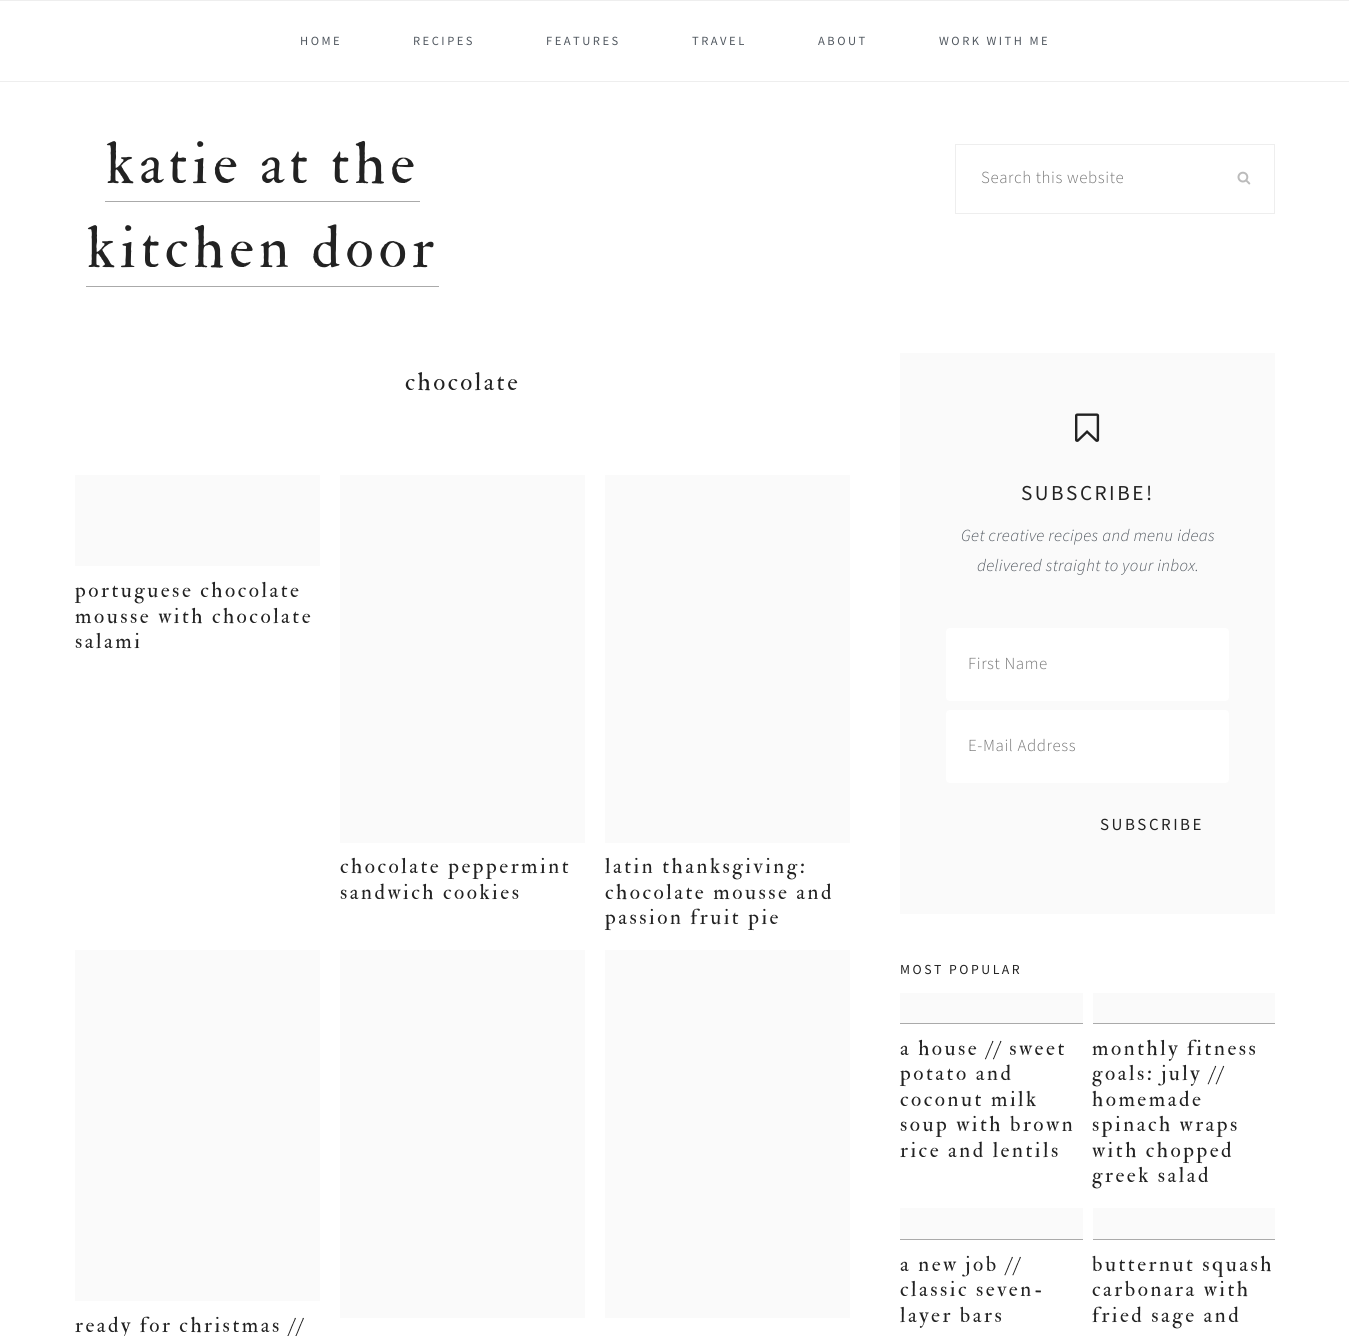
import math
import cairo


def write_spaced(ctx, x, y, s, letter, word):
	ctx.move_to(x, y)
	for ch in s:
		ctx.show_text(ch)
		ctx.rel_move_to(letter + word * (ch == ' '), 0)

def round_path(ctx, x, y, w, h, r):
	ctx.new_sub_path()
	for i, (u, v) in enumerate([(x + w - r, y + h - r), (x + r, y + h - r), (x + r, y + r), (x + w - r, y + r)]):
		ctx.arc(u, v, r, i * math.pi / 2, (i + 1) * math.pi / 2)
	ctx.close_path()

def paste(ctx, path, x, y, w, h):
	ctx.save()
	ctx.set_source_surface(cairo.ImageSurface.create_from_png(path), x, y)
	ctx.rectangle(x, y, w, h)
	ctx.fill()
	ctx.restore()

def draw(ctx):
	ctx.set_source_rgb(1, 1, 1)
	ctx.paint()
	ctx.set_source_rgb(0.933, 0.933, 0.933)
	ctx.rectangle(0, 0, 1349, 1)
	ctx.fill()
	ctx.rectangle(0, 81, 1349, 1)
	ctx.fill()
	ctx.select_font_face('Source Sans Pro')
	ctx.set_font_size(12.5)
	ctx.set_source_rgb(0.314, 0.341, 0.373)
	for x, y, s in [
		(300, 45, 'HOME'),
		(413, 45, 'RECIPES'),
		(546, 45, 'FEATURES'),
		(692, 45, 'TRAVEL'),
		(818, 45, 'ABOUT'),
		(939, 45, 'WORK WITH ME'),
	]:
		write_spaced(ctx, x, y, s, 2.5, 0)
	ctx.select_font_face('IM FELL Double Pica')
	ctx.set_font_size(58.75)
	ctx.set_source_rgb(0.133, 0.133, 0.133)
	write_spaced(ctx, 106, 183, 'katie at the', 5, 0)
	ctx.set_source_rgb(0.667, 0.667, 0.667)
	ctx.rectangle(105, 201, 315, 1)
	ctx.fill()
	ctx.set_source_rgb(0.133, 0.133, 0.133)
	write_spaced(ctx, 87, 267, 'kitchen door', 5, 0)
	ctx.set_source_rgb(0.667, 0.667, 0.667)
	ctx.rectangle(86, 286, 353, 1)
	ctx.fill()
	ctx.rectangle(955.5, 144.5, 319, 69)
	ctx.set_source_rgb(0.933, 0.933, 0.933)
	ctx.set_line_width(1)
	ctx.stroke()
	ctx.select_font_face('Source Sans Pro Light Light')
	ctx.set_font_size(16.9)
	ctx.set_source_rgb(0.459, 0.459, 0.459)
	write_spaced(ctx, 981, 183, 'Search this website', 0.6, 0)
	paste(ctx, 'media/1.png', 1237, 171, 14, 14)
	ctx.select_font_face('IM FELL Double Pica')
	ctx.set_font_size(25)
	ctx.set_source_rgb(0.133, 0.133, 0.133)
	write_spaced(ctx, 405, 390, 'chocolate', 2.5, 0)
	ctx.set_source_rgb(0.98, 0.98, 0.98)
	ctx.rectangle(75, 475, 245, 91)
	ctx.fill()
	ctx.set_font_size(21.25)
	ctx.set_source_rgb(0.133, 0.133, 0.133)
	for x, y, s in [
		(75, 597, 'portuguese chocolate'),
		(75, 623, 'mousse with chocolate'),
		(75, 648, 'salami'),
	]:
		write_spaced(ctx, x, y, s, 2.5, 0)
	ctx.set_source_rgb(0.98, 0.98, 0.98)
	ctx.rectangle(340, 475, 245, 368)
	ctx.fill()
	ctx.set_source_rgb(0.133, 0.133, 0.133)
	write_spaced(ctx, 340, 873, 'chocolate peppermint', 2.5, 0)
	write_spaced(ctx, 340, 899, 'sandwich cookies', 2.5, 0)
	ctx.set_source_rgb(0.98, 0.98, 0.98)
	ctx.rectangle(605, 475, 245, 368)
	ctx.fill()
	ctx.set_source_rgb(0.133, 0.133, 0.133)
	for x, y, s in [
		(605, 873, 'latin thanksgiving:'),
		(605, 899, 'chocolate mousse and'),
		(605, 924, 'passion fruit pie'),
	]:
		write_spaced(ctx, x, y, s, 2.5, 0)
	ctx.set_source_rgb(0.98, 0.98, 0.98)
	ctx.rectangle(340, 950, 245, 368)
	ctx.rectangle(605, 950, 245, 368)
	ctx.rectangle(75, 950, 245, 351)
	ctx.fill()
	ctx.set_source_rgb(0.133, 0.133, 0.133)
	write_spaced(ctx, 75, 1332, 'ready for christmas //', 2.5, 0)
	ctx.set_source_rgb(0.98, 0.98, 0.98)
	ctx.rectangle(900, 353, 375, 561)
	ctx.fill()
	paste(ctx, 'media/2.png', 1075, 413, 25, 29)
	ctx.select_font_face('Source Sans Pro')
	ctx.set_source_rgb(0.133, 0.133, 0.133)
	write_spaced(ctx, 1021, 500, 'SUBSCRIBE!', 2.5, 0)
	ctx.select_font_face('Source Sans Pro Light Light', cairo.FONT_SLANT_ITALIC)
	ctx.set_font_size(16.9)
	ctx.set_source_rgb(0.314, 0.341, 0.373)
	write_spaced(ctx, 961, 541, 'Get creative recipes and menu ideas', 0.35, 0)
	write_spaced(ctx, 977, 571, 'delivered straight to your inbox.', 0.35, 0)
	ctx.set_source_rgb(1, 1, 1)
	round_path(ctx, 946, 628, 283, 73, 4)
	ctx.fill()
	ctx.select_font_face('Source Sans Pro Light Light')
	ctx.set_source_rgb(0.459, 0.459, 0.459)
	write_spaced(ctx, 968, 669, 'First Name', 0.6, 0)
	ctx.set_source_rgb(1, 1, 1)
	round_path(ctx, 946, 710, 283, 73, 4)
	ctx.fill()
	ctx.set_source_rgb(0.459, 0.459, 0.459)
	write_spaced(ctx, 968, 751, 'E-Mail Address', 0.6, 0)
	ctx.select_font_face('Source Sans Pro')
	ctx.set_source_rgb(0.133, 0.133, 0.133)
	write_spaced(ctx, 1100, 830, 'SUBSCRIBE', 2.5, 0)
	ctx.set_font_size(13.75)
	write_spaced(ctx, 900, 974, 'MOST POPULAR', 2.5, 0)
	ctx.set_source_rgb(0.98, 0.98, 0.98)
	ctx.rectangle(900, 993, 183, 30)
	ctx.fill()
	ctx.set_source_rgb(0.667, 0.667, 0.667)
	ctx.rectangle(900, 1023, 183, 1)
	ctx.fill()
	ctx.select_font_face('IM FELL Double Pica')
	ctx.set_font_size(21.25)
	ctx.set_source_rgb(0.133, 0.133, 0.133)
	for x, y, s in [
		(900, 1055, 'a house // sweet'),
		(900, 1080, 'potato and'),
		(900, 1106, 'coconut milk'),
		(900, 1131, 'soup with brown'),
		(900, 1157, 'rice and lentils'),
	]:
		write_spaced(ctx, x, y, s, 2.5, 0)
	ctx.set_source_rgb(0.98, 0.98, 0.98)
	ctx.rectangle(1093, 993, 182, 30)
	ctx.fill()
	ctx.set_source_rgb(0.667, 0.667, 0.667)
	ctx.rectangle(1093, 1023, 182, 1)
	ctx.fill()
	ctx.set_source_rgb(0.133, 0.133, 0.133)
	for x, y, s in [
		(1092, 1055, 'monthly fitness'),
		(1092, 1080, 'goals: july //'),
		(1092, 1106, 'homemade'),
		(1092, 1131, 'spinach wraps'),
		(1092, 1157, 'with chopped'),
		(1092, 1182, 'greek salad'),
	]:
		write_spaced(ctx, x, y, s, 2.5, 0)
	ctx.set_source_rgb(0.98, 0.98, 0.98)
	ctx.rectangle(900, 1208, 183, 31)
	ctx.fill()
	ctx.set_source_rgb(0.667, 0.667, 0.667)
	ctx.rectangle(900, 1239, 183, 1)
	ctx.fill()
	ctx.set_source_rgb(0.133, 0.133, 0.133)
	for x, y, s in [
		(900, 1271, 'a new job //'),
		(900, 1296, 'classic seven-'),
		(900, 1322, 'layer bars'),
	]:
		write_spaced(ctx, x, y, s, 2.5, 0)
	ctx.set_source_rgb(0.98, 0.98, 0.98)
	ctx.rectangle(1093, 1208, 182, 31)
	ctx.fill()
	ctx.set_source_rgb(0.667, 0.667, 0.667)
	ctx.rectangle(1093, 1239, 182, 1)
	ctx.fill()
	ctx.set_source_rgb(0.133, 0.133, 0.133)
	for x, y, s in [
		(1092, 1271, 'butternut squash'),
		(1092, 1296, 'carbonara with'),
		(1092, 1322, 'fried sage and'),
	]:
		write_spaced(ctx, x, y, s, 2.5, 0)


surface = cairo.ImageSurface(cairo.FORMAT_RGB24, 1349, 1336)
ctx = cairo.Context(surface)
options = cairo.FontOptions()
options.set_hint_metrics(cairo.HINT_METRICS_OFF)
options.set_hint_style(cairo.HINT_STYLE_NONE)
ctx.set_font_options(options)
ctx.set_miter_limit(4)
draw(ctx)
surface.write_to_png('image.png')
